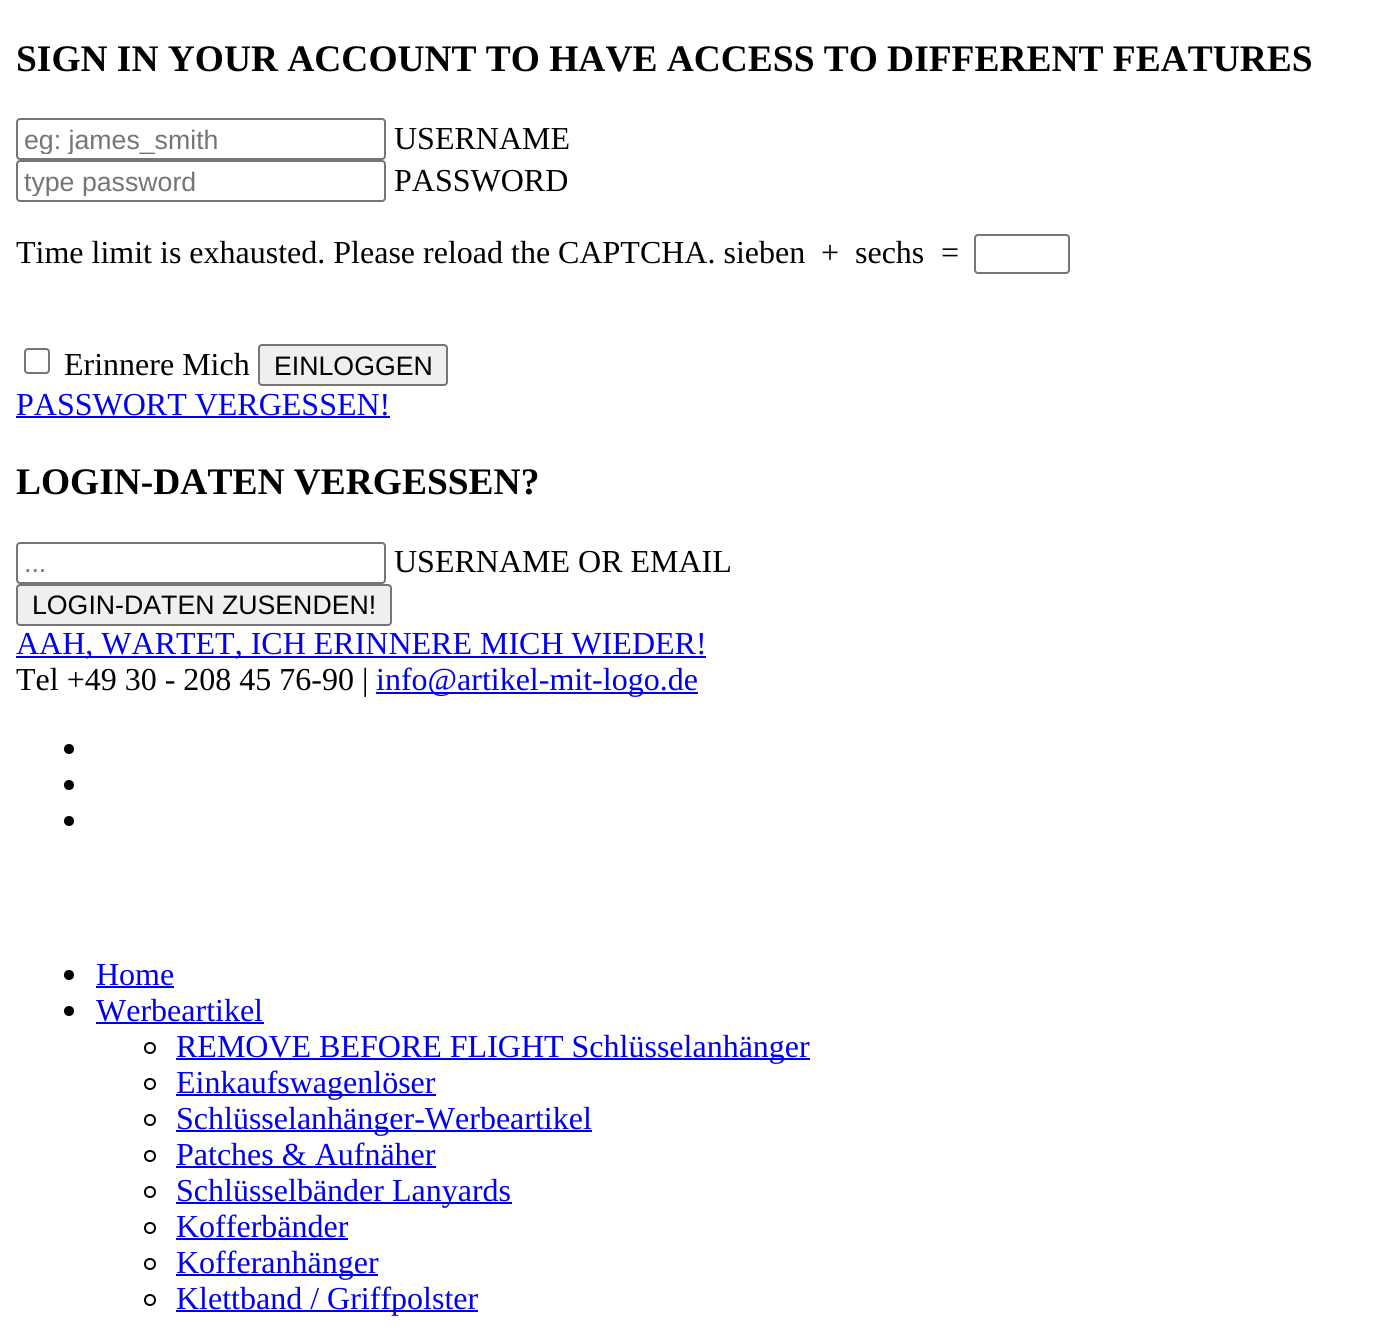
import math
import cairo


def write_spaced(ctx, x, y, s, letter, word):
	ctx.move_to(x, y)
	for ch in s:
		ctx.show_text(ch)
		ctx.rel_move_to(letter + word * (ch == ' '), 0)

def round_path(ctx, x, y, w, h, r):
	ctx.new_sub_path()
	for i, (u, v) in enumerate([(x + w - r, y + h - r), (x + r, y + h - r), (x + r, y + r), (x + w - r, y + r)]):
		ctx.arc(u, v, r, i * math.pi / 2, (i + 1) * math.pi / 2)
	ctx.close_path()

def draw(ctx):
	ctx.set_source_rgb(1, 1, 1)
	ctx.paint()
	ctx.select_font_face('Liberation Serif', cairo.FONT_SLANT_NORMAL, cairo.FONT_WEIGHT_BOLD)
	ctx.set_font_size(37.45)
	ctx.set_source_rgb(0, 0, 0)
	write_spaced(ctx, 16, 71, 'SIGN IN YOUR ACCOUNT TO HAVE ACCESS TO DIFFERENT FEATURES', 0, -0.1)
	round_path(ctx, 17, 119, 368, 40, 3)
	ctx.set_source_rgb(0.463, 0.463, 0.463)
	ctx.stroke()
	ctx.save()
	ctx.rectangle(24, 124, 354, 30)
	ctx.clip()
	ctx.select_font_face('Liberation Sans')
	ctx.set_font_size(26.7)
	ctx.set_source_rgb(0.459, 0.459, 0.459)
	ctx.move_to(24, 149)
	ctx.show_text('eg: james_smith')
	ctx.restore()
	ctx.select_font_face('Liberation Serif')
	ctx.set_font_size(32)
	ctx.set_source_rgb(0, 0, 0)
	ctx.move_to(394, 149)
	ctx.show_text('USERNAME')
	round_path(ctx, 17, 161, 368, 40, 3)
	ctx.set_source_rgb(0.463, 0.463, 0.463)
	ctx.stroke()
	ctx.save()
	ctx.rectangle(24, 166, 354, 30)
	ctx.clip()
	ctx.select_font_face('Liberation Sans')
	ctx.set_font_size(26.7)
	ctx.set_source_rgb(0.459, 0.459, 0.459)
	ctx.move_to(24, 191)
	ctx.show_text('type password')
	ctx.restore()
	ctx.set_source_rgb(0, 0, 0)
	for x, y, s in [
		(394, 191, 'PASSWORD'),
		(16, 263, 'Time limit is exhausted. Please reload the CAPTCHA. sieben'),
		(821, 263, '+'),
		(855, 263, 'sechs'),
		(941, 263, '='),
	]:
		ctx.move_to(x, y)
		ctx.show_text(s)
	round_path(ctx, 975, 235, 94, 38, 3)
	ctx.set_source_rgb(0.463, 0.463, 0.463)
	ctx.stroke()
	round_path(ctx, 25, 349, 24, 24, 3)
	ctx.stroke()
	ctx.set_source_rgb(0, 0, 0)
	ctx.move_to(64, 375)
	ctx.show_text('Erinnere Mich')
	ctx.set_source_rgb(0.937, 0.937, 0.937)
	round_path(ctx, 259, 345, 188, 40, 3)
	ctx.fill_preserve()
	ctx.set_source_rgb(0.463, 0.463, 0.463)
	ctx.stroke()
	ctx.select_font_face('Liberation Sans')
	ctx.set_font_size(26.7)
	ctx.set_source_rgb(0, 0, 0)
	ctx.move_to(274, 375)
	ctx.show_text('EINLOGGEN')
	ctx.select_font_face('Liberation Serif')
	ctx.set_font_size(32)
	ctx.set_source_rgb(0, 0, 0.933)
	ctx.move_to(16, 415)
	ctx.show_text('PASSWORT VERGESSEN!')
	ctx.rectangle(16, 416, 374, 2)
	ctx.fill()
	ctx.select_font_face('Liberation Serif', cairo.FONT_SLANT_NORMAL, cairo.FONT_WEIGHT_BOLD)
	ctx.set_font_size(37.45)
	ctx.set_source_rgb(0, 0, 0)
	ctx.move_to(16, 494)
	ctx.show_text('LOGIN-DATEN VERGESSEN?')
	round_path(ctx, 17, 543, 368, 40, 3)
	ctx.set_source_rgb(0.463, 0.463, 0.463)
	ctx.stroke()
	ctx.select_font_face('Liberation Sans')
	ctx.set_font_size(26.7)
	ctx.set_source_rgb(0.459, 0.459, 0.459)
	ctx.move_to(24, 572)
	ctx.show_text('...')
	ctx.select_font_face('Liberation Serif')
	ctx.set_font_size(32)
	ctx.set_source_rgb(0, 0, 0)
	ctx.move_to(394, 572)
	ctx.show_text('USERNAME OR EMAIL')
	ctx.set_source_rgb(0.937, 0.937, 0.937)
	round_path(ctx, 17, 585, 374, 40, 3)
	ctx.fill_preserve()
	ctx.set_source_rgb(0.463, 0.463, 0.463)
	ctx.stroke()
	ctx.select_font_face('Liberation Sans')
	ctx.set_font_size(26.7)
	ctx.set_source_rgb(0, 0, 0)
	ctx.move_to(32, 614)
	ctx.show_text('LOGIN-DATEN ZUSENDEN!')
	ctx.set_source_rgb(0, 0, 0.933)
	ctx.rectangle(16, 656, 690, 2)
	ctx.fill()
	ctx.select_font_face('Liberation Serif')
	ctx.set_font_size(32)
	ctx.move_to(16, 654)
	ctx.show_text('AAH, WARTET, ICH ERINNERE MICH WIEDER!')
	ctx.set_source_rgb(0, 0, 0)
	ctx.move_to(16, 690)
	ctx.show_text('Tel +49 30 - 208 45 76-90 |')
	ctx.set_source_rgb(0, 0, 0.933)
	ctx.rectangle(376, 692, 322, 2)
	ctx.fill()
	ctx.move_to(376, 690)
	ctx.show_text('info@artikel-mit-logo.de')
	ctx.set_source_rgb(0, 0, 0)
	ctx.new_path()
	ctx.arc(69, 749, 5, 0, 2 * math.pi)
	ctx.fill()
	ctx.arc(69, 785, 5, 0, 2 * math.pi)
	ctx.fill()
	ctx.arc(69, 821, 5, 0, 2 * math.pi)
	ctx.fill()
	ctx.arc(69, 975, 5, 0, 2 * math.pi)
	ctx.fill()
	ctx.set_source_rgb(0, 0, 0.933)
	ctx.move_to(96, 985)
	ctx.show_text('Home')
	ctx.rectangle(96, 986, 78, 2)
	ctx.fill()
	ctx.set_source_rgb(0, 0, 0)
	ctx.arc(69, 1011, 5, 0, 2 * math.pi)
	ctx.fill()
	ctx.set_source_rgb(0, 0, 0.933)
	ctx.move_to(96, 1021)
	ctx.show_text('Werbeartikel')
	ctx.rectangle(96, 1022, 168, 2)
	ctx.fill()
	ctx.arc(150, 1048, 5, 0, 2 * math.pi)
	ctx.set_source_rgb(0, 0, 0)
	ctx.stroke()
	ctx.set_source_rgb(0, 0, 0.933)
	ctx.rectangle(176, 1058, 634, 2)
	ctx.fill()
	ctx.move_to(176, 1057)
	ctx.show_text('REMOVE BEFORE FLIGHT Schlüsselanhänger')
	ctx.new_path()
	ctx.arc(150, 1084, 5, 0, 2 * math.pi)
	ctx.set_source_rgb(0, 0, 0)
	ctx.stroke()
	ctx.set_source_rgb(0, 0, 0.933)
	ctx.rectangle(176, 1094, 260, 2)
	ctx.fill()
	ctx.move_to(176, 1093)
	ctx.show_text('Einkaufswagenlöser')
	ctx.new_path()
	ctx.arc(150, 1120, 5, 0, 2 * math.pi)
	ctx.set_source_rgb(0, 0, 0)
	ctx.stroke()
	ctx.set_source_rgb(0, 0, 0.933)
	ctx.rectangle(176, 1130, 416, 2)
	ctx.fill()
	ctx.move_to(176, 1129)
	ctx.show_text('Schlüsselanhänger-Werbeartikel')
	ctx.new_path()
	ctx.arc(150, 1156, 5, 0, 2 * math.pi)
	ctx.set_source_rgb(0, 0, 0)
	ctx.stroke()
	ctx.set_source_rgb(0, 0, 0.933)
	ctx.move_to(176, 1165)
	ctx.show_text('Patches & Aufnäher')
	ctx.rectangle(176, 1166, 260, 2)
	ctx.fill()
	ctx.arc(150, 1192, 5, 0, 2 * math.pi)
	ctx.set_source_rgb(0, 0, 0)
	ctx.stroke()
	ctx.set_source_rgb(0, 0, 0.933)
	ctx.rectangle(176, 1202, 336, 2)
	ctx.fill()
	ctx.move_to(176, 1201)
	ctx.show_text('Schlüsselbänder Lanyards')
	ctx.new_path()
	ctx.arc(150, 1228, 5, 0, 2 * math.pi)
	ctx.set_source_rgb(0, 0, 0)
	ctx.stroke()
	ctx.set_source_rgb(0, 0, 0.933)
	ctx.move_to(176, 1237)
	ctx.show_text('Kofferbänder')
	ctx.rectangle(176, 1238, 172, 2)
	ctx.fill()
	ctx.arc(150, 1264, 5, 0, 2 * math.pi)
	ctx.set_source_rgb(0, 0, 0)
	ctx.stroke()
	ctx.set_source_rgb(0, 0, 0.933)
	ctx.rectangle(176, 1274, 202, 2)
	ctx.fill()
	ctx.move_to(176, 1273)
	ctx.show_text('Kofferanhänger')
	ctx.new_path()
	ctx.arc(150, 1300, 5, 0, 2 * math.pi)
	ctx.set_source_rgb(0, 0, 0)
	ctx.stroke()
	ctx.set_source_rgb(0, 0, 0.933)
	ctx.rectangle(176, 1310, 302, 2)
	ctx.fill()
	ctx.move_to(176, 1309)
	ctx.show_text('Klettband / Griffpolster')


surface = cairo.ImageSurface(cairo.FORMAT_RGB24, 1382, 1328)
ctx = cairo.Context(surface)
options = cairo.FontOptions()
options.set_hint_metrics(cairo.HINT_METRICS_OFF)
options.set_hint_style(cairo.HINT_STYLE_NONE)
ctx.set_font_options(options)
ctx.set_miter_limit(4)
draw(ctx)
surface.write_to_png('image.png')
